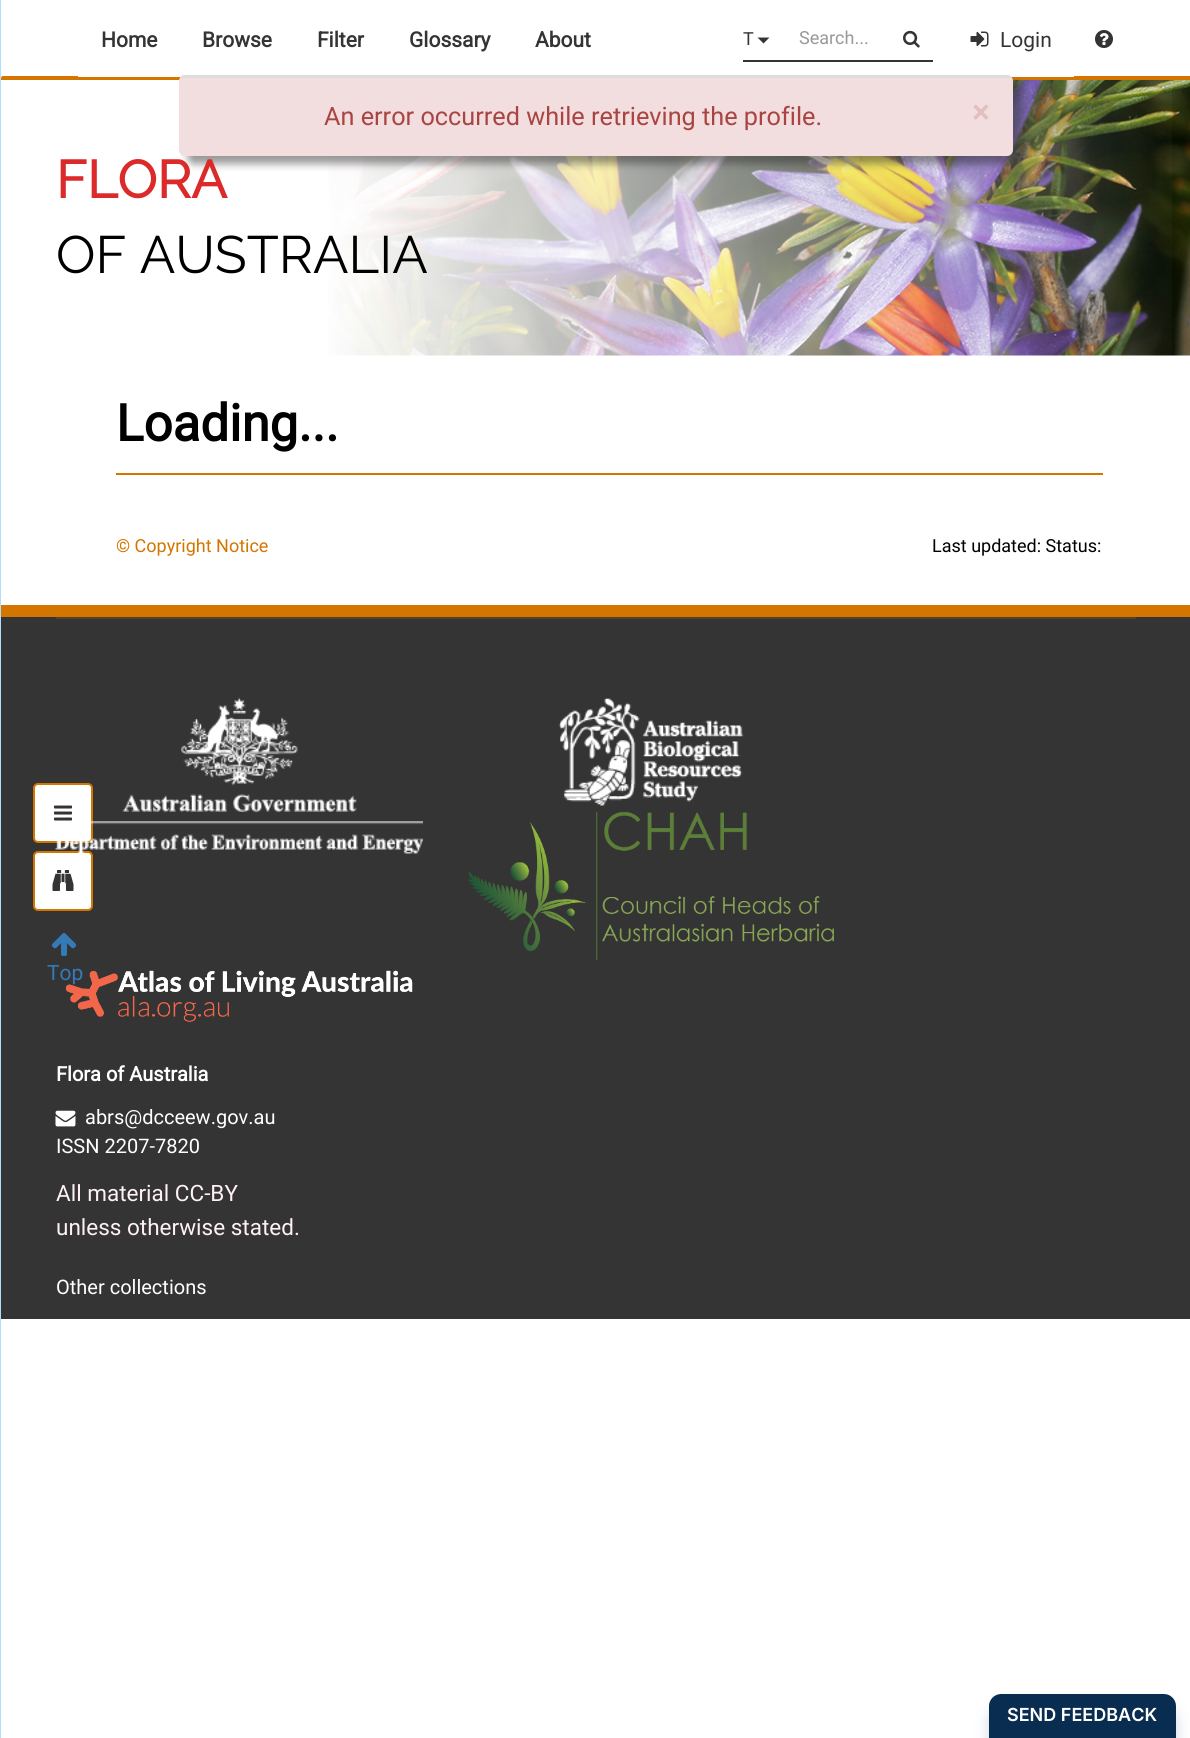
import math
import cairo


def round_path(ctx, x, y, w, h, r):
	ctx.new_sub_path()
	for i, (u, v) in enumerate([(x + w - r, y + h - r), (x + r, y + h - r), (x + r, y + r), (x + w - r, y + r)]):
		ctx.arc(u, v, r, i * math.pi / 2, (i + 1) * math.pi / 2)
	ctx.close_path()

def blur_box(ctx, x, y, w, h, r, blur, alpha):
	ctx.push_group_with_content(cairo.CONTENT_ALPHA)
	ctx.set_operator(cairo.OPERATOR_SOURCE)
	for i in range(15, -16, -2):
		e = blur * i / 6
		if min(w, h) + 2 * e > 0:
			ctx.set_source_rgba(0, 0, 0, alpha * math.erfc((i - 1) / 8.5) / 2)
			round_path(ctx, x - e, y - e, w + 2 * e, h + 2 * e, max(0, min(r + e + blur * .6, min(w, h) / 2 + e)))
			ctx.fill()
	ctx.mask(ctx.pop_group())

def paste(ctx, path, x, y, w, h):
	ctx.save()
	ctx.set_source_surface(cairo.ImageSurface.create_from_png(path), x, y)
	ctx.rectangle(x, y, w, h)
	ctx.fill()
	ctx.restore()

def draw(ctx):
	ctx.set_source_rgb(1, 1, 1)
	ctx.paint()
	ctx.set_source_rgb(0.831, 0.459, 0)
	ctx.new_path()
	ctx.move_to(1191, 80)
	ctx.line_to(0, 80)
	ctx.line_to(2, 76)
	ctx.line_to(1190, 76)
	ctx.close_path()
	ctx.fill()
	ctx.set_source_rgb(1, 1, 1)
	ctx.rectangle(78, 76, 216, 1)
	ctx.fill()
	ctx.select_font_face('Roboto', cairo.FONT_SLANT_NORMAL, cairo.FONT_WEIGHT_BOLD)
	ctx.set_font_size(21)
	ctx.set_source_rgb(0.204, 0.204, 0.204)
	for x, y, s in [
		(101, 47, 'Home'),
		(202, 47, 'Browse'),
		(317, 47, 'Filter'),
		(409, 47, 'Glossary'),
		(535, 47, 'About'),
	]:
		ctx.move_to(x, y)
		ctx.show_text(s)
	ctx.rectangle(743, 60, 190, 2)
	ctx.fill()
	ctx.select_font_face('Roboto')
	ctx.set_font_size(18)
	ctx.move_to(743, 45)
	ctx.show_text('T')
	ctx.new_path()
	ctx.move_to(757.5, 37.5)
	ctx.line_to(769.5, 37.5)
	ctx.line_to(763.5, 43.5)
	ctx.close_path()
	ctx.fill()
	ctx.set_source_rgb(0.6, 0.6, 0.6)
	ctx.move_to(799, 44)
	ctx.show_text('Search...')
	paste(ctx, 'media/1.png', 903, 30, 17, 18)
	ctx.set_source_rgb(1, 1, 1)
	ctx.rectangle(948, 76, 126, 1)
	ctx.fill()
	paste(ctx, 'media/2.png', 970, 31, 19, 16)
	ctx.set_font_size(21)
	ctx.set_source_rgb(0.204, 0.204, 0.204)
	ctx.move_to(1000, 47)
	ctx.show_text('Login')
	paste(ctx, 'media/3.png', 1095, 30, 18, 18)
	paste(ctx, 'media/4.png', 328, 80, 862, 276)
	gradient = cairo.LinearGradient(33, 218, 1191, 217)
	gradient.add_color_stop_rgba(0, 1, 1, 1, 1)
	gradient.add_color_stop_rgba(0.25, 1, 1, 1, 1)
	gradient.add_color_stop_rgba(1, 1, 1, 1, 0)
	ctx.set_source(gradient)
	ctx.rectangle(328, 80, 844, 276)
	ctx.fill()
	ctx.set_source_rgb(0.196, 0.196, 0.196)
	blur_box(ctx, 188, 83, 834, 81, 6, 4, 0.5)
	ctx.set_source_rgb(0.949, 0.871, 0.871)
	round_path(ctx, 179, 75, 834, 81, 6)
	ctx.fill()
	ctx.new_path()
	ctx.move_to(181.5, 78)
	ctx.curve_to(182, 77, 183.5, 76.5, 184.5, 76.5)
	ctx.line_to(1006.5, 76.5)
	ctx.curve_to(1007.5, 76.5, 1009, 77, 1009.5, 78)
	ctx.set_source_rgb(0.867, 0.867, 0.867)
	ctx.set_line_width(3)
	ctx.stroke()
	ctx.set_font_size(25.25)
	ctx.set_source_rgb(0.663, 0.267, 0.259)
	ctx.move_to(324, 125)
	ctx.show_text('An error occurred while retrieving the profile.')
	ctx.select_font_face('Roboto', cairo.FONT_SLANT_NORMAL, cairo.FONT_WEIGHT_BOLD)
	ctx.set_font_size(32)
	ctx.set_source_rgb(0.89, 0.749, 0.749)
	ctx.move_to(972, 123)
	ctx.show_text('×')
	ctx.select_font_face('Raleway', cairo.FONT_SLANT_NORMAL, cairo.FONT_WEIGHT_BOLD)
	ctx.set_font_size(52.5)
	ctx.set_source_rgb(0.863, 0.165, 0.165)
	ctx.move_to(56, 198)
	ctx.show_text('FLORA')
	ctx.select_font_face('Raleway Thin')
	ctx.set_source_rgb(0, 0, 0)
	ctx.move_to(56, 273)
	ctx.show_text('OF AUSTRALIA')
	ctx.select_font_face('Roboto', cairo.FONT_SLANT_NORMAL, cairo.FONT_WEIGHT_BOLD)
	ctx.set_font_size(51)
	ctx.move_to(116, 441)
	ctx.show_text('Loading...')
	ctx.set_source_rgb(0.831, 0.459, 0)
	ctx.rectangle(116, 473, 987, 2)
	ctx.fill()
	ctx.select_font_face('Roboto')
	ctx.set_font_size(18)
	ctx.move_to(116, 552)
	ctx.show_text('© Copyright Notice')
	ctx.set_source_rgb(0, 0, 0)
	ctx.move_to(932, 552)
	ctx.show_text('Last updated: Status:')
	ctx.set_source_rgb(0.686, 0.871, 0.98)
	ctx.rectangle(0, 0, 1, 1738)
	ctx.fill()
	ctx.set_source_rgb(0.204, 0.204, 0.204)
	ctx.rectangle(1, 617, 1189, 702)
	ctx.fill()
	ctx.set_source_rgb(1, 1, 1)
	round_path(ctx, 34, 784, 58, 58, 4)
	ctx.fill_preserve()
	ctx.set_source_rgb(0.831, 0.459, 0)
	ctx.set_line_width(2)
	ctx.stroke()
	paste(ctx, 'media/5.png', 54, 805, 18, 16)
	ctx.set_source_rgb(1, 1, 1)
	round_path(ctx, 34, 852, 58, 58, 4)
	ctx.fill_preserve()
	ctx.set_source_rgb(0.831, 0.459, 0)
	ctx.stroke()
	paste(ctx, 'media/6.png', 52, 870, 22, 21)
	paste(ctx, 'media/7.png', 51, 933, 26, 23)
	ctx.set_font_size(21)
	ctx.set_source_rgb(0.2, 0.478, 0.718)
	ctx.move_to(47, 980)
	ctx.show_text('Top')
	ctx.set_source_rgb(0.831, 0.459, 0)
	ctx.rectangle(1, 605, 1189, 12)
	ctx.fill()
	ctx.set_source_rgb(0.329, 0.255, 0.165)
	ctx.rectangle(56, 617, 1080, 2)
	ctx.fill()
	paste(ctx, 'media/8.png', 55, 697, 368, 157)
	paste(ctx, 'media/9.png', 558, 698, 186, 108)
	paste(ctx, 'media/10.png', 468, 811, 366, 149)
	paste(ctx, 'media/11.png', 65, 970, 348, 52)
	ctx.select_font_face('Roboto', cairo.FONT_SLANT_NORMAL, cairo.FONT_WEIGHT_BOLD)
	ctx.set_font_size(20)
	ctx.set_source_rgb(1, 1, 1)
	ctx.move_to(56, 1081)
	ctx.show_text('Flora of Australia')
	paste(ctx, 'media/12.png', 55, 1110, 21, 17)
	ctx.select_font_face('Roboto')
	ctx.move_to(85, 1124)
	ctx.show_text('abrs@dcceew.gov.au')
	ctx.move_to(56, 1153)
	ctx.show_text('ISSN 2207-7820')
	ctx.set_font_size(22.5)
	ctx.set_source_rgb(1, 0.941, 0.961)
	ctx.move_to(56, 1201)
	ctx.show_text('All material CC-BY')
	ctx.move_to(56, 1235)
	ctx.show_text('unless otherwise stated.')
	ctx.set_font_size(20)
	ctx.set_source_rgb(1, 1, 1)
	ctx.move_to(56, 1294)
	ctx.show_text('Other collections')
	ctx.set_source_rgb(0, 0.224, 0.502)
	blur_box(ctx, 989, 1709, 187, 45, 12, 7.5, 0.2)
	ctx.set_source_rgb(0.039, 0.176, 0.314)
	ctx.new_path()
	ctx.move_to(1001, 1694)
	ctx.line_to(1164, 1694)
	ctx.curve_to(1170.5, 1694, 1176, 1699.5, 1176, 1706)
	ctx.line_to(1176, 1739)
	ctx.line_to(989, 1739)
	ctx.line_to(989, 1706)
	ctx.curve_to(989, 1699.5, 994.5, 1694, 1001, 1694)
	ctx.close_path()
	ctx.fill()
	ctx.select_font_face('Inter SemiBold')
	ctx.set_font_size(18)
	ctx.set_source_rgb(1, 1, 1)
	ctx.move_to(1007, 1721)
	ctx.show_text('SEND FEEDBACK')


surface = cairo.ImageSurface(cairo.FORMAT_RGB24, 1190, 1738)
ctx = cairo.Context(surface)
options = cairo.FontOptions()
options.set_hint_metrics(cairo.HINT_METRICS_OFF)
options.set_hint_style(cairo.HINT_STYLE_NONE)
ctx.set_font_options(options)
ctx.set_miter_limit(4)
draw(ctx)
surface.write_to_png('image.png')
